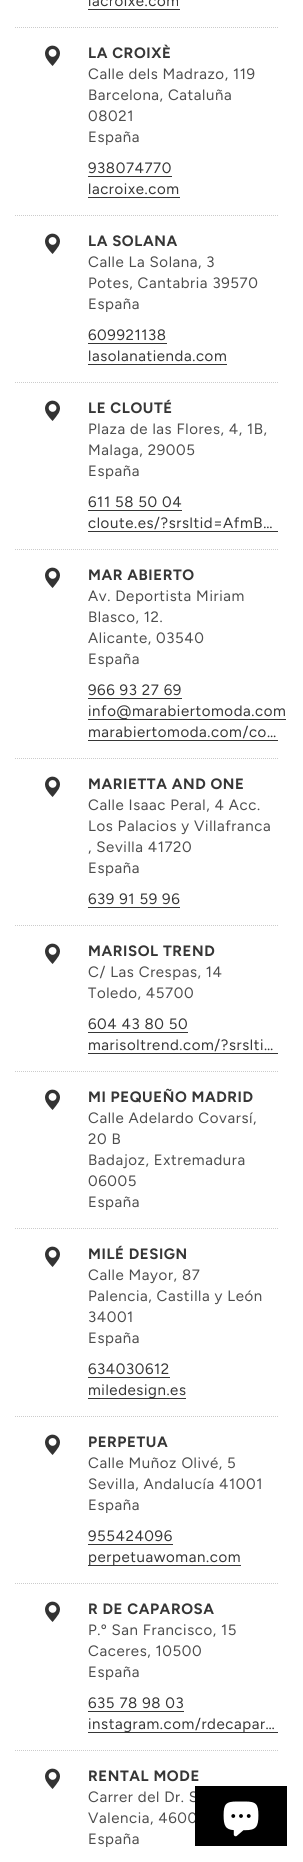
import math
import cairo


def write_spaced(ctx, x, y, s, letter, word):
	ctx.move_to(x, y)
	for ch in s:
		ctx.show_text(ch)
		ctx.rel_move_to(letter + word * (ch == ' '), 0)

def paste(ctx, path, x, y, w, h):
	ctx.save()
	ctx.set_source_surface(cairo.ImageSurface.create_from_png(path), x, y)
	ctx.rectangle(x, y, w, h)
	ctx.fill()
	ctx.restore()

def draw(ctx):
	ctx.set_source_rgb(1, 1, 1)
	ctx.paint()
	ctx.select_font_face('Figtree')
	ctx.set_font_size(15)
	ctx.set_source_rgb(0.212, 0.212, 0.212)
	write_spaced(ctx, 88, 6, 'lacroixe.com', 0.6, 0)
	ctx.rectangle(88, 9, 92, 1)
	ctx.fill()
	ctx.new_path()
	ctx.move_to(15, 27.5)
	ctx.line_to(278, 27.5)
	ctx.set_source_rgb(0.8, 0.8, 0.8)
	ctx.set_line_width(1)
	ctx.set_dash([1, 1])
	ctx.stroke()
	paste(ctx, 'media/1.png', 45, 45, 15, 21)
	ctx.select_font_face('Figtree', cairo.FONT_SLANT_NORMAL, cairo.FONT_WEIGHT_BOLD)
	ctx.set_source_rgb(0.212, 0.212, 0.212)
	write_spaced(ctx, 88, 58, 'LA CROIXÈ', 0.6, 0)
	ctx.select_font_face('Figtree')
	ctx.set_source_rgb(0.302, 0.302, 0.302)
	for x, y, s in [
		(88, 79, 'Calle dels Madrazo, 119'),
		(88, 100, 'Barcelona, Cataluña'),
		(88, 121, '08021'),
		(88, 142, 'España'),
	]:
		write_spaced(ctx, x, y, s, 0.6, 0)
	ctx.set_source_rgb(0.212, 0.212, 0.212)
	write_spaced(ctx, 88, 173, '938074770', 0.6, 0)
	ctx.rectangle(88, 176, 84, 1)
	ctx.fill()
	write_spaced(ctx, 88, 194, 'lacroixe.com', 0.6, 0)
	ctx.rectangle(88, 197, 92, 1)
	ctx.fill()
	ctx.new_path()
	ctx.move_to(15, 215.5)
	ctx.line_to(278, 215.5)
	ctx.set_source_rgb(0.8, 0.8, 0.8)
	ctx.stroke()
	paste(ctx, 'media/1.png', 45, 233, 15, 21)
	ctx.select_font_face('Figtree', cairo.FONT_SLANT_NORMAL, cairo.FONT_WEIGHT_BOLD)
	ctx.set_source_rgb(0.212, 0.212, 0.212)
	write_spaced(ctx, 88, 246, 'LA SOLANA', 0.6, 0)
	ctx.select_font_face('Figtree')
	ctx.set_source_rgb(0.302, 0.302, 0.302)
	for x, y, s in [
		(88, 267, 'Calle La Solana, 3'),
		(88, 288, 'Potes, Cantabria 39570'),
		(88, 309, 'España'),
	]:
		write_spaced(ctx, x, y, s, 0.6, 0)
	ctx.set_source_rgb(0.212, 0.212, 0.212)
	write_spaced(ctx, 88, 340, '609921138', 0.6, 0)
	ctx.rectangle(88, 343, 79, 1)
	ctx.fill()
	write_spaced(ctx, 88, 361, 'lasolanatienda.com', 0.6, 0)
	ctx.rectangle(88, 364, 139, 1)
	ctx.fill()
	ctx.new_path()
	ctx.move_to(15, 382.5)
	ctx.line_to(278, 382.5)
	ctx.set_source_rgb(0.8, 0.8, 0.8)
	ctx.stroke()
	paste(ctx, 'media/1.png', 45, 400, 15, 21)
	ctx.select_font_face('Figtree', cairo.FONT_SLANT_NORMAL, cairo.FONT_WEIGHT_BOLD)
	ctx.set_source_rgb(0.212, 0.212, 0.212)
	write_spaced(ctx, 88, 413, 'LE CLOUTÉ', 0.6, 0)
	ctx.select_font_face('Figtree')
	ctx.set_source_rgb(0.302, 0.302, 0.302)
	for x, y, s in [
		(88, 434, 'Plaza de las Flores, 4, 1B,'),
		(88, 455, 'Malaga, 29005'),
		(88, 476, 'España'),
	]:
		write_spaced(ctx, x, y, s, 0.6, 0)
	ctx.set_source_rgb(0.212, 0.212, 0.212)
	write_spaced(ctx, 88, 507, '611 58 50 04', 0.6, 0)
	ctx.rectangle(88, 510, 94, 1)
	ctx.fill()
	write_spaced(ctx, 88, 528, 'cloute.es/?srsltid=AfmB…', 0.6, 0)
	ctx.rectangle(88, 531, 190, 1)
	ctx.fill()
	ctx.new_path()
	ctx.move_to(15, 549.5)
	ctx.line_to(278, 549.5)
	ctx.set_source_rgb(0.8, 0.8, 0.8)
	ctx.stroke()
	paste(ctx, 'media/1.png', 45, 567, 15, 21)
	ctx.select_font_face('Figtree', cairo.FONT_SLANT_NORMAL, cairo.FONT_WEIGHT_BOLD)
	ctx.set_source_rgb(0.212, 0.212, 0.212)
	write_spaced(ctx, 88, 580, 'MAR ABIERTO', 0.6, 0)
	ctx.select_font_face('Figtree')
	ctx.set_source_rgb(0.302, 0.302, 0.302)
	for x, y, s in [
		(88, 601, 'Av. Deportista Miriam'),
		(88, 622, 'Blasco, 12.'),
		(88, 643, 'Alicante, 03540'),
		(88, 664, 'España'),
	]:
		write_spaced(ctx, x, y, s, 0.6, 0)
	ctx.set_source_rgb(0.212, 0.212, 0.212)
	write_spaced(ctx, 88, 695, '966 93 27 69', 0.6, 0)
	ctx.rectangle(88, 698, 94, 1)
	ctx.fill()
	ctx.rectangle(88, 719, 198, 1)
	ctx.fill()
	write_spaced(ctx, 88, 716, 'info@marabiertomoda.com', 0.6, 0)
	write_spaced(ctx, 88, 737, 'marabiertomoda.com/co…', 0.6, 0)
	ctx.rectangle(88, 740, 190, 1)
	ctx.fill()
	ctx.new_path()
	ctx.move_to(15, 758.5)
	ctx.line_to(278, 758.5)
	ctx.set_source_rgb(0.8, 0.8, 0.8)
	ctx.stroke()
	paste(ctx, 'media/1.png', 45, 776, 15, 21)
	ctx.select_font_face('Figtree', cairo.FONT_SLANT_NORMAL, cairo.FONT_WEIGHT_BOLD)
	ctx.set_source_rgb(0.212, 0.212, 0.212)
	write_spaced(ctx, 88, 789, 'MARIETTA AND ONE', 0.6, 0)
	ctx.select_font_face('Figtree')
	ctx.set_source_rgb(0.302, 0.302, 0.302)
	for x, y, s in [
		(88, 810, 'Calle Isaac Peral, 4 Acc.'),
		(88, 831, 'Los Palacios y Villafranca'),
		(88, 852, ', Sevilla 41720'),
		(88, 873, 'España'),
	]:
		write_spaced(ctx, x, y, s, 0.6, 0)
	ctx.set_source_rgb(0.212, 0.212, 0.212)
	write_spaced(ctx, 88, 904, '639 91 59 96', 0.6, 0)
	ctx.rectangle(88, 907, 92, 1)
	ctx.fill()
	ctx.new_path()
	ctx.move_to(15, 925.5)
	ctx.line_to(278, 925.5)
	ctx.set_source_rgb(0.8, 0.8, 0.8)
	ctx.stroke()
	paste(ctx, 'media/1.png', 45, 943, 15, 21)
	ctx.select_font_face('Figtree', cairo.FONT_SLANT_NORMAL, cairo.FONT_WEIGHT_BOLD)
	ctx.set_source_rgb(0.212, 0.212, 0.212)
	write_spaced(ctx, 88, 956, 'MARISOL TREND', 0.6, 0)
	ctx.select_font_face('Figtree')
	ctx.set_source_rgb(0.302, 0.302, 0.302)
	write_spaced(ctx, 88, 977, 'C/ Las Crespas, 14', 0.6, 0)
	write_spaced(ctx, 88, 998, 'Toledo, 45700', 0.6, 0)
	ctx.set_source_rgb(0.212, 0.212, 0.212)
	write_spaced(ctx, 88, 1029, '604 43 80 50', 0.6, 0)
	ctx.rectangle(88, 1032, 100, 1)
	ctx.fill()
	write_spaced(ctx, 88, 1050, 'marisoltrend.com/?srslti…', 0.6, 0)
	ctx.rectangle(88, 1053, 190, 1)
	ctx.fill()
	ctx.new_path()
	ctx.move_to(15, 1071.5)
	ctx.line_to(278, 1071.5)
	ctx.set_source_rgb(0.8, 0.8, 0.8)
	ctx.stroke()
	paste(ctx, 'media/1.png', 45, 1089, 15, 21)
	ctx.select_font_face('Figtree', cairo.FONT_SLANT_NORMAL, cairo.FONT_WEIGHT_BOLD)
	ctx.set_source_rgb(0.212, 0.212, 0.212)
	write_spaced(ctx, 88, 1102, 'MI PEQUEÑO MADRID', 0.6, 0)
	ctx.select_font_face('Figtree')
	ctx.set_source_rgb(0.302, 0.302, 0.302)
	for x, y, s in [
		(88, 1123, 'Calle Adelardo Covarsí,'),
		(88, 1144, '20 B'),
		(88, 1165, 'Badajoz, Extremadura'),
		(88, 1186, '06005'),
		(88, 1207, 'España'),
	]:
		write_spaced(ctx, x, y, s, 0.6, 0)
	ctx.new_path()
	ctx.move_to(15, 1228.5)
	ctx.line_to(278, 1228.5)
	ctx.set_source_rgb(0.8, 0.8, 0.8)
	ctx.stroke()
	paste(ctx, 'media/1.png', 45, 1246, 15, 21)
	ctx.select_font_face('Figtree', cairo.FONT_SLANT_NORMAL, cairo.FONT_WEIGHT_BOLD)
	ctx.set_source_rgb(0.212, 0.212, 0.212)
	write_spaced(ctx, 88, 1259, 'MILÉ DESIGN', 0.6, 0)
	ctx.select_font_face('Figtree')
	ctx.set_source_rgb(0.302, 0.302, 0.302)
	for x, y, s in [
		(88, 1280, 'Calle Mayor, 87'),
		(88, 1301, 'Palencia, Castilla y León'),
		(88, 1322, '34001'),
		(88, 1343, 'España'),
	]:
		write_spaced(ctx, x, y, s, 0.6, 0)
	ctx.set_source_rgb(0.212, 0.212, 0.212)
	write_spaced(ctx, 88, 1374, '634030612', 0.6, 0)
	ctx.rectangle(88, 1377, 82, 1)
	ctx.fill()
	ctx.rectangle(88, 1398, 98, 1)
	ctx.fill()
	write_spaced(ctx, 88, 1395, 'miledesign.es', 0.6, 0)
	ctx.new_path()
	ctx.move_to(15, 1416.5)
	ctx.line_to(278, 1416.5)
	ctx.set_source_rgb(0.8, 0.8, 0.8)
	ctx.stroke()
	paste(ctx, 'media/1.png', 45, 1434, 15, 21)
	ctx.select_font_face('Figtree', cairo.FONT_SLANT_NORMAL, cairo.FONT_WEIGHT_BOLD)
	ctx.set_source_rgb(0.212, 0.212, 0.212)
	write_spaced(ctx, 88, 1447, 'PERPETUA', 0.6, 0)
	ctx.select_font_face('Figtree')
	ctx.set_source_rgb(0.302, 0.302, 0.302)
	for x, y, s in [
		(88, 1468, 'Calle Muñoz Olivé, 5'),
		(88, 1489, 'Sevilla, Andalucía 41001'),
		(88, 1510, 'España'),
	]:
		write_spaced(ctx, x, y, s, 0.6, 0)
	ctx.set_source_rgb(0.212, 0.212, 0.212)
	write_spaced(ctx, 88, 1541, '955424096', 0.6, 0)
	ctx.rectangle(88, 1544, 85, 1)
	ctx.fill()
	write_spaced(ctx, 88, 1562, 'perpetuawoman.com', 0.6, 0)
	ctx.rectangle(88, 1565, 153, 1)
	ctx.fill()
	ctx.new_path()
	ctx.move_to(15, 1583.5)
	ctx.line_to(278, 1583.5)
	ctx.set_source_rgb(0.8, 0.8, 0.8)
	ctx.stroke()
	paste(ctx, 'media/1.png', 45, 1601, 15, 21)
	ctx.select_font_face('Figtree', cairo.FONT_SLANT_NORMAL, cairo.FONT_WEIGHT_BOLD)
	ctx.set_source_rgb(0.212, 0.212, 0.212)
	write_spaced(ctx, 88, 1614, 'R DE CAPAROSA', 0.6, 0)
	ctx.select_font_face('Figtree')
	ctx.set_source_rgb(0.302, 0.302, 0.302)
	for x, y, s in [
		(88, 1635, 'P.º San Francisco, 15'),
		(88, 1656, 'Caceres, 10500'),
		(88, 1677, 'España'),
	]:
		write_spaced(ctx, x, y, s, 0.6, 0)
	ctx.set_source_rgb(0.212, 0.212, 0.212)
	write_spaced(ctx, 88, 1708, '635 78 98 03', 0.6, 0)
	ctx.rectangle(88, 1711, 96, 1)
	ctx.fill()
	ctx.rectangle(88, 1732, 190, 1)
	ctx.fill()
	write_spaced(ctx, 88, 1729, 'instagram.com/rdecapar…', 0.6, 0)
	ctx.new_path()
	ctx.move_to(15, 1750.5)
	ctx.line_to(278, 1750.5)
	ctx.set_source_rgb(0.8, 0.8, 0.8)
	ctx.stroke()
	paste(ctx, 'media/1.png', 45, 1768, 15, 21)
	ctx.select_font_face('Figtree', cairo.FONT_SLANT_NORMAL, cairo.FONT_WEIGHT_BOLD)
	ctx.set_source_rgb(0.212, 0.212, 0.212)
	write_spaced(ctx, 88, 1781, 'RENTAL MODE', 0.6, 0)
	ctx.select_font_face('Figtree')
	ctx.set_source_rgb(0.302, 0.302, 0.302)
	for x, y, s in [
		(88, 1802, 'Carrer del Dr. S'),
		(88, 1823, 'Valencia, 4600'),
		(88, 1844, 'España'),
	]:
		write_spaced(ctx, x, y, s, 0.6, 0)
	ctx.set_source_rgb(0, 0, 0)
	ctx.rectangle(195, 1786, 92, 60)
	ctx.fill()
	paste(ctx, 'media/2.png', 223, 1801, 36, 36)


surface = cairo.ImageSurface(cairo.FORMAT_RGB24, 303, 1862)
ctx = cairo.Context(surface)
options = cairo.FontOptions()
options.set_hint_metrics(cairo.HINT_METRICS_OFF)
options.set_hint_style(cairo.HINT_STYLE_NONE)
ctx.set_font_options(options)
ctx.set_miter_limit(4)
draw(ctx)
surface.write_to_png('image.png')
